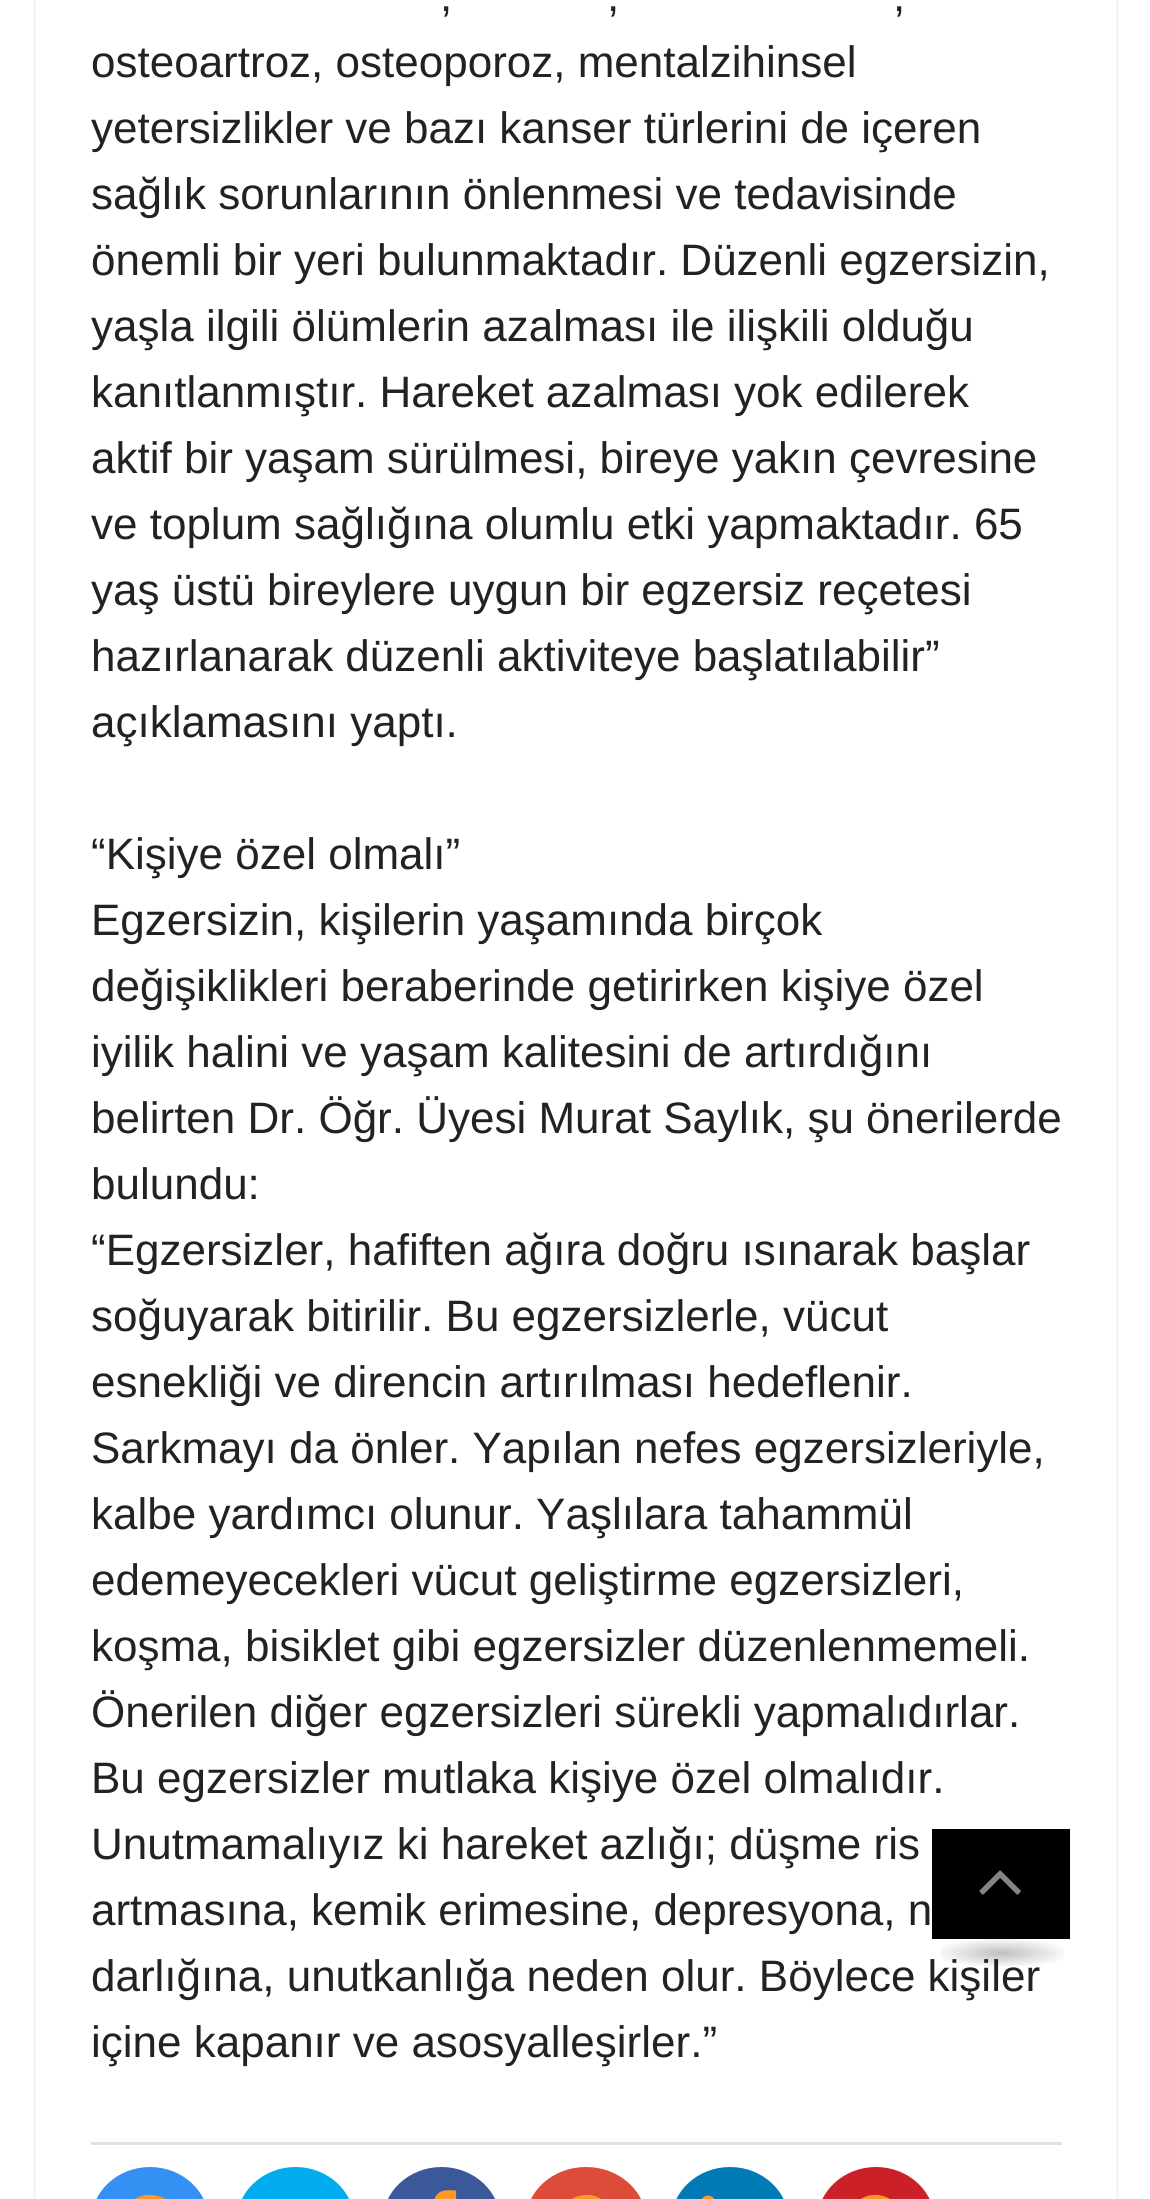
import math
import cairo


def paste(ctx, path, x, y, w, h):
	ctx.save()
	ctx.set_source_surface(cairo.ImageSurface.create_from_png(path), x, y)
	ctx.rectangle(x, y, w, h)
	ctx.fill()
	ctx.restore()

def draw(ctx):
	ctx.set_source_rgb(1, 1, 1)
	ctx.paint()
	ctx.rectangle(34.5, -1.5, 1083, 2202)
	ctx.set_source_rgb(0.957, 0.957, 0.957)
	ctx.set_line_width(3)
	ctx.stroke()
	ctx.select_font_face('Liberation Sans')
	ctx.set_font_size(44)
	ctx.set_source_rgb(0.133, 0.133, 0.133)
	for x, y, s in [
		(440, 11, ','),
		(607, 11, ','),
		(893, 11, ','),
		(91, 77, 'osteoartroz, osteoporoz, mentalzihinsel'),
		(91, 143, 'yetersizlikler ve bazı kanser türlerini de içeren'),
		(91, 209, 'sağlık sorunlarının önlenmesi ve tedavisinde'),
		(91, 275, 'önemli bir yeri bulunmaktadır. Düzenli egzersizin,'),
		(91, 341, 'yaşla ilgili ölümlerin azalması ile ilişkili olduğu'),
		(91, 407, 'kanıtlanmıştır. Hareket azalması yok edilerek'),
		(91, 473, 'aktif bir yaşam sürülmesi, bireye yakın çevresine'),
		(91, 539, 've toplum sağlığına olumlu etki yapmaktadır. 65'),
		(91, 605, 'yaş üstü bireylere uygun bir egzersiz reçetesi'),
		(91, 671, 'hazırlanarak düzenli aktiviteye başlatılabilir”'),
		(91, 737, 'açıklamasını yaptı.'),
		(91, 869, '“Kişiye özel olmalı”'),
		(91, 935, 'Egzersizin, kişilerin yaşamında birçok'),
		(91, 1001, 'değişiklikleri beraberinde getirirken kişiye özel'),
		(91, 1067, 'iyilik halini ve yaşam kalitesini de artırdığını'),
		(91, 1133, 'belirten Dr. Öğr. Üyesi Murat Saylık, şu önerilerde'),
		(91, 1199, 'bulundu:'),
		(91, 1265, '“Egzersizler, hafiften ağıra doğru ısınarak başlar'),
		(91, 1331, 'soğuyarak bitirilir. Bu egzersizlerle, vücut'),
		(91, 1397, 'esnekliği ve direncin artırılması hedeflenir.'),
		(91, 1463, 'Sarkmayı da önler. Yapılan nefes egzersizleriyle,'),
		(91, 1529, 'kalbe yardımcı olunur. Yaşlılara tahammül'),
		(91, 1595, 'edemeyecekleri vücut geliştirme egzersizleri,'),
		(91, 1661, 'koşma, bisiklet gibi egzersizler düzenlenmemeli.'),
		(91, 1727, 'Önerilen diğer egzersizleri sürekli yapmalıdırlar.'),
		(91, 1793, 'Bu egzersizler mutlaka kişiye özel olmalıdır.'),
		(91, 1859, 'Unutmamalıyız ki hareket azlığı; düşme ris'),
		(91, 1925, 'artmasına, kemik erimesine, depresyona, n'),
		(91, 1991, 'darlığına, unutkanlığa neden olur. Böylece kişiler'),
		(91, 2057, 'içine kapanır ve asosyalleşirler.”'),
	]:
		ctx.move_to(x, y)
		ctx.show_text(s)
	ctx.set_source_rgb(0.871, 0.886, 0.902)
	ctx.rectangle(91, 2142, 971, 3)
	ctx.fill()
	ctx.set_source_rgb(0.204, 0.565, 0.953)
	ctx.new_path()
	ctx.move_to(150, 2167)
	ctx.curve_to(182.5, 2167, 209, 2191.5, 209, 2222)
	ctx.curve_to(209, 2252.5, 182.5, 2277, 150, 2277)
	ctx.curve_to(117.5, 2277, 91, 2252.5, 91, 2222)
	ctx.curve_to(91, 2191.5, 117.5, 2167, 150, 2167)
	ctx.close_path()
	ctx.fill()
	paste(ctx, 'media/1.png', 134, 2194, 31, 5)
	ctx.set_source_rgb(0, 0.675, 0.929)
	ctx.new_path()
	ctx.move_to(295.5, 2167)
	ctx.curve_to(328, 2167, 354.5, 2191.5, 354.5, 2222)
	ctx.curve_to(354.5, 2252.5, 328, 2277, 295.5, 2277)
	ctx.curve_to(263, 2277, 236.5, 2252.5, 236.5, 2222)
	ctx.curve_to(236.5, 2191.5, 263, 2167, 295.5, 2167)
	ctx.close_path()
	ctx.fill()
	ctx.set_source_rgb(0.231, 0.349, 0.596)
	ctx.new_path()
	ctx.move_to(441.5, 2167)
	ctx.curve_to(474, 2167, 500.5, 2191.5, 500.5, 2222)
	ctx.curve_to(500.5, 2252.5, 474, 2277, 441.5, 2277)
	ctx.curve_to(409, 2277, 382.5, 2252.5, 382.5, 2222)
	ctx.curve_to(382.5, 2191.5, 409, 2167, 441.5, 2167)
	ctx.close_path()
	ctx.fill()
	paste(ctx, 'media/2.png', 434, 2190, 23, 9)
	ctx.set_source_rgb(0.867, 0.294, 0.224)
	ctx.new_path()
	ctx.move_to(586, 2167)
	ctx.curve_to(619.5, 2167, 646.5, 2191.5, 646.5, 2222)
	ctx.curve_to(646.5, 2252.5, 619.5, 2277, 586, 2277)
	ctx.curve_to(552.5, 2277, 525.5, 2252.5, 525.5, 2222)
	ctx.curve_to(525.5, 2191.5, 552.5, 2167, 586, 2167)
	ctx.close_path()
	ctx.fill()
	paste(ctx, 'media/3.png', 572, 2194, 29, 5)
	ctx.set_source_rgb(0, 0.482, 0.714)
	ctx.new_path()
	ctx.move_to(730, 2167)
	ctx.curve_to(762.5, 2167, 789, 2191.5, 789, 2222)
	ctx.curve_to(789, 2252.5, 762.5, 2277, 730, 2277)
	ctx.curve_to(697.5, 2277, 671, 2252.5, 671, 2222)
	ctx.curve_to(671, 2191.5, 697.5, 2167, 730, 2167)
	ctx.close_path()
	ctx.fill()
	paste(ctx, 'media/4.png', 702, 2195, 12, 4)
	ctx.set_source_rgb(0.796, 0.125, 0.153)
	ctx.new_path()
	ctx.move_to(876, 2167)
	ctx.curve_to(908.5, 2167, 935, 2191.5, 935, 2222)
	ctx.curve_to(935, 2252.5, 908.5, 2277, 876, 2277)
	ctx.curve_to(843.5, 2277, 817, 2252.5, 817, 2222)
	ctx.curve_to(817, 2191.5, 843.5, 2167, 876, 2167)
	ctx.close_path()
	ctx.fill()
	paste(ctx, 'media/5.png', 860, 2194, 30, 5)
	ctx.set_source_rgb(0, 0, 0)
	ctx.rectangle(932, 1829, 138, 110)
	ctx.fill()
	paste(ctx, 'media/6.png', 979, 1870, 42, 25)
	gradient = cairo.RadialGradient(0, 0, 0, 0, 0, 1)
	gradient.set_matrix(cairo.Matrix(1 / 88, 0, 0, 1 / 19, -1 * 1002 / 88, -1 * 1953 / 19))
	gradient.add_color_stop_rgba(0, 0, 0, 0, 0.25)
	gradient.add_color_stop_rgba(0.8, 0, 0, 0, 0)
	ctx.set_source(gradient)
	ctx.rectangle(941, 1939, 123, 27)
	ctx.fill()


surface = cairo.ImageSurface(cairo.FORMAT_RGB24, 1150, 2199)
ctx = cairo.Context(surface)
options = cairo.FontOptions()
options.set_hint_metrics(cairo.HINT_METRICS_OFF)
options.set_hint_style(cairo.HINT_STYLE_NONE)
ctx.set_font_options(options)
ctx.set_miter_limit(4)
draw(ctx)
surface.write_to_png('image.png')
